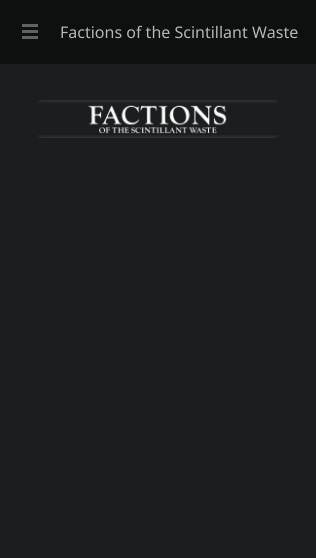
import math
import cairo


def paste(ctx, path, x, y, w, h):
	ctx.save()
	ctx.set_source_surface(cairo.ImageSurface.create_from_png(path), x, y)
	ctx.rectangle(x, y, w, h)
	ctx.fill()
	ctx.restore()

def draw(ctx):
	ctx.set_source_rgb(0.106, 0.114, 0.122)
	ctx.paint()
	ctx.set_source_rgb(0.055, 0.059, 0.059)
	ctx.rectangle(0, 0, 316, 64)
	ctx.fill()
	paste(ctx, 'media/1.png', 22, 24, 16, 15)
	ctx.select_font_face('Noto Sans')
	ctx.set_font_size(16)
	ctx.set_source_rgb(0.706, 0.714, 0.722)
	ctx.move_to(60, 38)
	ctx.show_text('Factions of the Scintillant Waste')
	paste(ctx, 'media/2.png', 37, 100, 242, 38)


surface = cairo.ImageSurface(cairo.FORMAT_RGB24, 316, 558)
ctx = cairo.Context(surface)
options = cairo.FontOptions()
options.set_hint_metrics(cairo.HINT_METRICS_OFF)
options.set_hint_style(cairo.HINT_STYLE_NONE)
ctx.set_font_options(options)
ctx.set_miter_limit(4)
draw(ctx)
surface.write_to_png('image.png')
